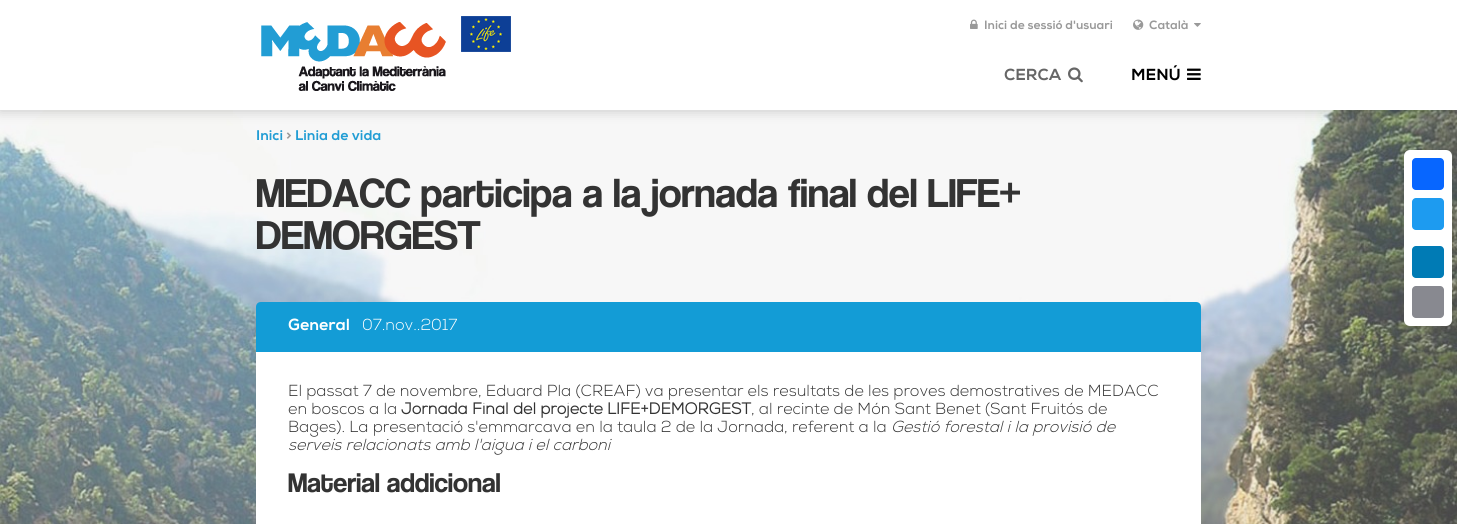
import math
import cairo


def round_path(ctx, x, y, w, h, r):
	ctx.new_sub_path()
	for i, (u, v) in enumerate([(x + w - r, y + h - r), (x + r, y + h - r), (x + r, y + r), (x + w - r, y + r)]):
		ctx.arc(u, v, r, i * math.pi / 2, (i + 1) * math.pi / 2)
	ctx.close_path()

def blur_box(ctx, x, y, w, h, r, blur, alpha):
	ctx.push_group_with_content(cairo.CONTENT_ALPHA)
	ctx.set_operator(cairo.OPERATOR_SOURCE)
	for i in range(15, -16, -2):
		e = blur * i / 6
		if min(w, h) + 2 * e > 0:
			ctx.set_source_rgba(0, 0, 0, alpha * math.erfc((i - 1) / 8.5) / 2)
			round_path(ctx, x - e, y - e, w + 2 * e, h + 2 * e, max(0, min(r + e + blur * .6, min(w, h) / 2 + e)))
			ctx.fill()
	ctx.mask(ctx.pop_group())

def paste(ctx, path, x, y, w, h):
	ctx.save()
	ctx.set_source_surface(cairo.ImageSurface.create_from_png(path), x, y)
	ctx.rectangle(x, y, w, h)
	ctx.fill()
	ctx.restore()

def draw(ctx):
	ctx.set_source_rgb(1, 1, 1)
	ctx.paint()
	paste(ctx, 'media/8.png', 0, 110, 1457, 414)
	ctx.set_source_rgb(0, 0, 0)
	blur_box(ctx, 0, 1, 1457, 110, 0, 6, 0.2)
	ctx.set_source_rgb(1, 1, 1)
	ctx.rectangle(0, 0, 1457, 110)
	ctx.fill()
	paste(ctx, 'media/1.png', 261, 22, 185, 69)
	paste(ctx, 'media/2.png', 461, 16, 50, 36)
	paste(ctx, 'media/3.png', 970, 19, 8, 10)
	ctx.select_font_face('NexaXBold', cairo.FONT_SLANT_NORMAL, cairo.FONT_WEIGHT_BOLD)
	ctx.set_font_size(12)
	ctx.set_source_rgb(0.6, 0.6, 0.6)
	ctx.move_to(984, 29)
	ctx.show_text('Inici de sessió d\'usuari')
	paste(ctx, 'media/4.png', 1133, 19, 11, 11)
	ctx.move_to(1149, 29)
	ctx.show_text('Català')
	paste(ctx, 'media/5.png', 1194, 23, 7, 4)
	ctx.set_font_size(16)
	ctx.set_source_rgb(0.4, 0.4, 0.4)
	ctx.move_to(1004, 80)
	ctx.show_text('CERCA')
	paste(ctx, 'media/6.png', 1068, 67, 15, 16)
	ctx.set_source_rgb(0, 0, 0)
	ctx.move_to(1131, 80)
	ctx.show_text('MENÚ')
	paste(ctx, 'media/7.png', 1187, 68, 14, 12)
	ctx.set_font_size(14)
	ctx.set_source_rgb(0.133, 0.616, 0.831)
	ctx.move_to(256, 140)
	ctx.show_text('Inici')
	ctx.set_source_rgb(0.6, 0.6, 0.6)
	ctx.move_to(286, 140)
	ctx.show_text('>')
	ctx.set_source_rgb(0.133, 0.616, 0.831)
	ctx.move_to(295, 140)
	ctx.show_text('Linia de vida')
	ctx.select_font_face('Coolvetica')
	ctx.set_font_size(42)
	ctx.set_source_rgb(0.2, 0.2, 0.2)
	ctx.move_to(256, 207)
	ctx.show_text('MEDACC participa a la jornada final del LIFE+')
	ctx.move_to(256, 249)
	ctx.show_text('DEMORGEST')
	ctx.set_source_rgb(1, 1, 1)
	round_path(ctx, 1404, 150, 48, 176, 6)
	ctx.fill()
	ctx.set_source_rgb(0.031, 0.4, 1)
	round_path(ctx, 1412, 158, 32, 32, 4)
	ctx.fill()
	ctx.set_source_rgb(0.114, 0.608, 0.941)
	round_path(ctx, 1412, 198, 32, 32, 4)
	ctx.fill()
	ctx.set_source_rgb(0, 0.482, 0.71)
	round_path(ctx, 1412, 246, 32, 32, 4)
	ctx.fill()
	ctx.set_source_rgb(0.533, 0.537, 0.565)
	round_path(ctx, 1412, 286, 32, 32, 4)
	ctx.fill()
	ctx.set_source_rgb(0.078, 0.612, 0.839)
	ctx.new_path()
	ctx.move_to(261, 302)
	ctx.line_to(1196, 302)
	ctx.curve_to(1199, 302, 1201, 304, 1201, 307)
	ctx.line_to(1201, 352)
	ctx.line_to(256, 352)
	ctx.line_to(256, 307)
	ctx.curve_to(256, 304, 258, 302, 261, 302)
	ctx.close_path()
	ctx.fill()
	ctx.select_font_face('NexaXBold', cairo.FONT_SLANT_NORMAL, cairo.FONT_WEIGHT_BOLD)
	ctx.set_font_size(16)
	ctx.set_source_rgb(1, 1, 1)
	ctx.move_to(288, 330)
	ctx.show_text('General')
	ctx.select_font_face('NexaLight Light')
	ctx.move_to(362, 330)
	ctx.show_text('07.nov..2017')
	ctx.rectangle(256, 352, 945, 172)
	ctx.fill()
	ctx.set_source_rgb(0.2, 0.2, 0.2)
	ctx.move_to(288, 396)
	ctx.show_text('El passat 7 de novembre, Eduard Pla (CREAF) va presentar els resultats de les proves demostratives de MEDACC')
	ctx.move_to(288, 414)
	ctx.show_text('en boscos a la')
	ctx.select_font_face('NexaLight', cairo.FONT_SLANT_NORMAL, cairo.FONT_WEIGHT_BOLD)
	ctx.move_to(401, 414)
	ctx.show_text('Jornada Final del projecte LIFE+DEMORGEST')
	ctx.select_font_face('NexaLight Light')
	ctx.move_to(751, 414)
	ctx.show_text(', al recinte de Món Sant Benet (Sant Fruitós de')
	ctx.move_to(288, 432)
	ctx.show_text('Bages). La presentació s\'emmarcava en la taula 2 de la Jornada, referent a la')
	ctx.select_font_face('NexaLight Light', cairo.FONT_SLANT_ITALIC)
	ctx.move_to(891, 432)
	ctx.show_text('Gestió forestal i la provisió de')
	ctx.move_to(288, 450)
	ctx.show_text('serveis relacionats amb l\'aigua i el carboni')
	ctx.select_font_face('Coolvetica')
	ctx.set_font_size(28)
	ctx.move_to(288, 492)
	ctx.show_text('Material addicional')


surface = cairo.ImageSurface(cairo.FORMAT_RGB24, 1457, 524)
ctx = cairo.Context(surface)
options = cairo.FontOptions()
options.set_hint_metrics(cairo.HINT_METRICS_OFF)
options.set_hint_style(cairo.HINT_STYLE_NONE)
ctx.set_font_options(options)
ctx.set_miter_limit(4)
draw(ctx)
surface.write_to_png('image.png')
